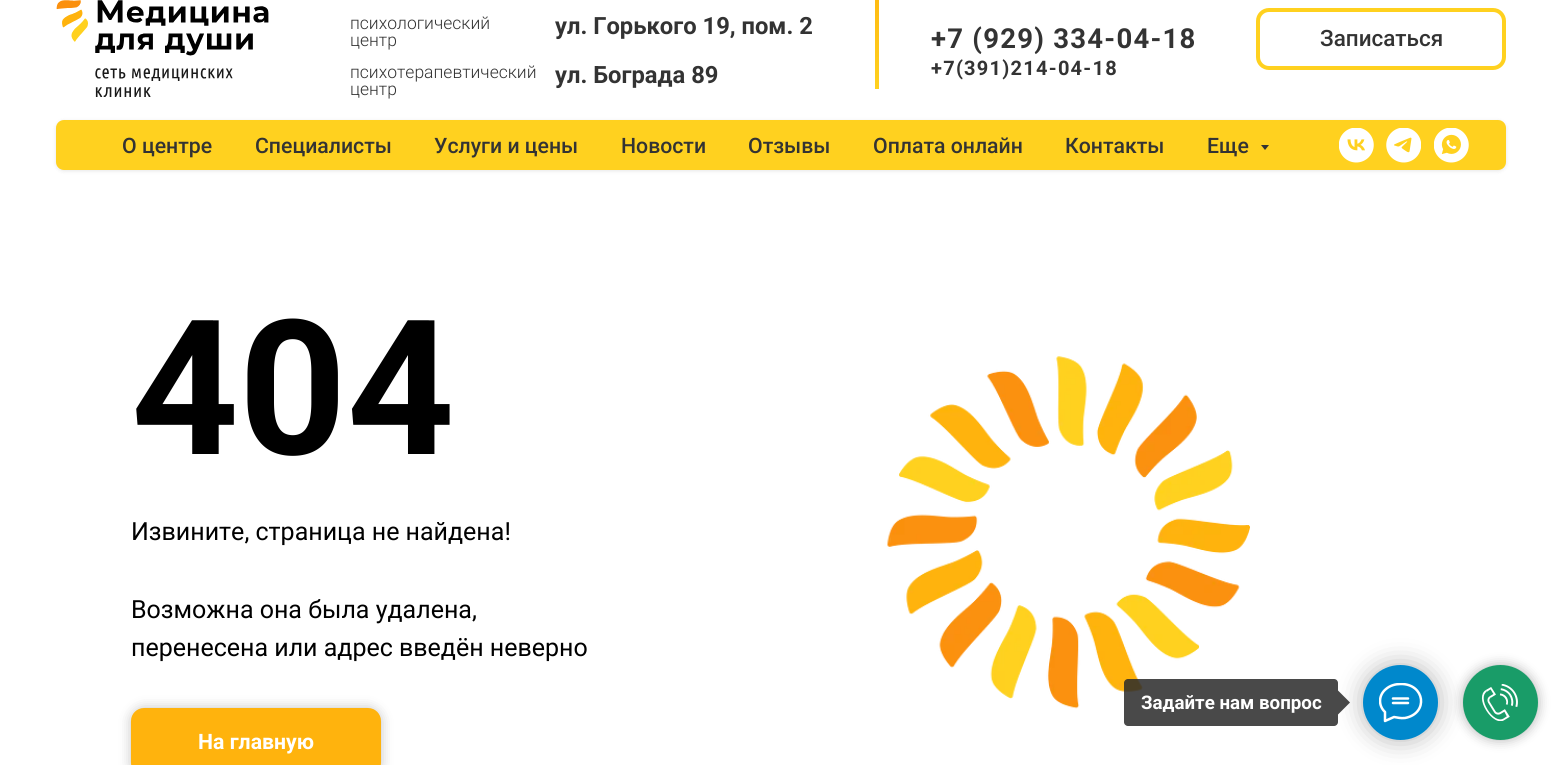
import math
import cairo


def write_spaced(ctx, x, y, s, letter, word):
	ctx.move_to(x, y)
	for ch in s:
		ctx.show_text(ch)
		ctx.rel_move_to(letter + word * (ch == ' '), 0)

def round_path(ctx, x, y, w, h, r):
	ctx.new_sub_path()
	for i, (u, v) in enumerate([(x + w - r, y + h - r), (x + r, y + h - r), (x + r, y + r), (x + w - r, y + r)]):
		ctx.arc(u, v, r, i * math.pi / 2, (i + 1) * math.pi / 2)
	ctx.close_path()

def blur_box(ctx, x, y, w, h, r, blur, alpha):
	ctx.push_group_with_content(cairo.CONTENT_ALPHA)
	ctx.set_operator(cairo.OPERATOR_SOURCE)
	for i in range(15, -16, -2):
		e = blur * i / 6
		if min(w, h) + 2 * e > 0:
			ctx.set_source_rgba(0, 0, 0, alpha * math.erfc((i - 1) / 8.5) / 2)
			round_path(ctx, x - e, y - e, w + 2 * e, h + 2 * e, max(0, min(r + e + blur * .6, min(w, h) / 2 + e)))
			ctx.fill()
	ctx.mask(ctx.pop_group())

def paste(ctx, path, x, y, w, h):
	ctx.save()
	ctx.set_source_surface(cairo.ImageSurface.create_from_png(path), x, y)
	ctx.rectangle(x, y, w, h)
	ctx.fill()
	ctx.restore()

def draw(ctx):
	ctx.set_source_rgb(1, 1, 1)
	ctx.paint()
	paste(ctx, 'media/1.png', 56, 0, 213, 97)
	ctx.select_font_face('Roboto Light')
	ctx.set_font_size(17.5)
	ctx.set_source_rgb(0.2, 0.2, 0.2)
	ctx.move_to(350, 29)
	ctx.show_text('психологический')
	ctx.move_to(350, 46)
	ctx.show_text('центр')
	ctx.select_font_face('Roboto', cairo.FONT_SLANT_NORMAL, cairo.FONT_WEIGHT_BOLD)
	ctx.set_font_size(23.75)
	ctx.move_to(555, 34)
	ctx.show_text('ул. Горького 19, пом. 2')
	gradient = cairo.LinearGradient(877, -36, 877, 89)
	gradient.add_color_stop_rgba(0, 1, 0.702, 0.051, 1)
	gradient.add_color_stop_rgba(1, 1, 0.82, 0.122, 1)
	ctx.set_source(gradient)
	ctx.rectangle(875, 0, 4, 89)
	ctx.fill()
	ctx.set_font_size(27.5)
	ctx.set_source_rgb(0.2, 0.2, 0.2)
	write_spaced(ctx, 931, 48, '+7 (929) 334-04-18', 1.25, 0)
	round_path(ctx, 1258, 10, 246, 58, 11)
	ctx.set_source_rgb(1, 0.82, 0.122)
	ctx.set_line_width(4)
	ctx.stroke()
	ctx.select_font_face('Roboto Medium')
	ctx.set_font_size(22.5)
	ctx.set_source_rgb(0.2, 0.2, 0.2)
	ctx.move_to(1320, 46)
	ctx.show_text('Записаться')
	ctx.select_font_face('Roboto Light')
	ctx.set_font_size(17.5)
	ctx.move_to(350, 78)
	ctx.show_text('психотерапевтический')
	ctx.move_to(350, 95)
	ctx.show_text('центр')
	ctx.select_font_face('Roboto', cairo.FONT_SLANT_NORMAL, cairo.FONT_WEIGHT_BOLD)
	ctx.set_font_size(23.75)
	ctx.move_to(555, 83)
	ctx.show_text('ул. Бограда 89')
	ctx.set_font_size(20)
	write_spaced(ctx, 931, 75, '+7(391)214-04-18', 1.25, 0)
	ctx.set_source_rgb(0, 0, 0)
	blur_box(ctx, 56, 121, 1450, 50, 8, 2, 0.1)
	ctx.set_source_rgb(1, 0.82, 0.122)
	round_path(ctx, 56, 120, 1450, 50, 8)
	ctx.fill()
	ctx.select_font_face('Roboto Medium')
	ctx.set_font_size(21.25)
	ctx.set_source_rgb(0.2, 0.2, 0.2)
	for x, y, s in [
		(122, 153, 'О центре'),
		(255, 153, 'Специалисты'),
		(434, 153, 'Услуги и цены'),
		(621, 153, 'Новости'),
		(748, 153, 'Отзывы'),
		(873, 153, 'Оплата онлайн'),
		(1065, 153, 'Контакты'),
		(1207, 153, 'Еще'),
	]:
		ctx.move_to(x, y)
		ctx.show_text(s)
	ctx.new_path()
	ctx.move_to(1261, 145)
	ctx.line_to(1269, 145)
	ctx.line_to(1265, 150)
	ctx.close_path()
	ctx.fill()
	paste(ctx, 'media/2.png', 1339, 128, 35, 35)
	paste(ctx, 'media/3.png', 1386, 128, 35, 35)
	paste(ctx, 'media/4.png', 1434, 128, 35, 35)
	paste(ctx, 'media/6.png', 887, 356, 363, 353)
	ctx.set_source_rgba(0.161, 0.161, 0.161, 0.85)
	round_path(ctx, 1124, 679, 214, 47, 4)
	ctx.fill()
	ctx.select_font_face('Roboto', cairo.FONT_SLANT_NORMAL, cairo.FONT_WEIGHT_BOLD)
	ctx.set_font_size(18.75)
	ctx.set_source_rgb(1, 1, 1)
	ctx.move_to(1141, 709)
	ctx.show_text('Задайте нам вопрос')
	ctx.set_source_rgb(0.286, 0.286, 0.286)
	ctx.new_path()
	ctx.move_to(1337.5, 715)
	ctx.line_to(1337.5, 690)
	ctx.line_to(1350, 702.5)
	ctx.close_path()
	ctx.fill()
	ctx.set_source_rgb(0, 0, 0)
	blur_box(ctx, 1463, 665, 75, 75, 37.5, 6, 0.3)
	ctx.set_source_rgb(0.098, 0.612, 0.408)
	ctx.arc(1500.5, 702.5, 37.5, 0, 2 * math.pi)
	ctx.fill()
	ctx.set_source_rgb(0, 0, 0)
	blur_box(ctx, 1363, 665, 75, 75, 37.5, 12.5, 0.3)
	ctx.set_source_rgb(0, 0.533, 0.8)
	ctx.arc(1400.5, 702.5, 37.5, 0, 2 * math.pi)
	ctx.fill()
	ctx.save()
	ctx.rectangle(1379, 683, 44, 40)
	ctx.clip()
	ctx.new_path()
	ctx.move_to(1393, 698.5)
	ctx.line_to(1408, 698.5)
	ctx.move_to(1393, 703)
	ctx.line_to(1408, 703)
	ctx.move_to(1385, 712)
	ctx.curve_to(1378, 705.5, 1378.5, 695, 1386, 689)
	ctx.curve_to(1390, 685.5, 1395.5, 684, 1400.5, 684)
	ctx.curve_to(1425, 683.5, 1429, 713.5, 1405, 718)
	ctx.curve_to(1400.5, 718.5, 1397.5, 717.5, 1394, 717)
	ctx.line_to(1385, 721)
	ctx.close_path()
	ctx.set_source_rgb(1, 1, 1)
	ctx.set_line_width(2.5)
	ctx.set_line_cap(cairo.LINE_CAP_ROUND)
	ctx.set_line_join(cairo.LINE_JOIN_ROUND)
	ctx.stroke()
	ctx.restore()
	paste(ctx, 'media/5.png', 1481, 684, 37, 37)
	ctx.set_font_size(188)
	ctx.set_source_rgb(0, 0, 0)
	ctx.move_to(131, 454)
	ctx.show_text('404')
	ctx.select_font_face('Roboto')
	ctx.set_font_size(25)
	for x, y, s in [
		(131, 540, 'Извините, страница не найдена!'),
		(131, 618, 'Возможна она была удалена,'),
		(131, 656, 'перенесена или адрес введён неверно'),
	]:
		ctx.move_to(x, y)
		ctx.show_text(s)
	ctx.set_source_rgb(0.2, 0.2, 0.2)
	blur_box(ctx, 131, 708, 250, 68, 13, 6, 0.3)
	ctx.set_source_rgb(1, 0.702, 0.051)
	round_path(ctx, 131, 708, 250, 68, 13)
	ctx.fill()
	ctx.select_font_face('Roboto', cairo.FONT_SLANT_NORMAL, cairo.FONT_WEIGHT_BOLD)
	ctx.set_font_size(21.25)
	ctx.set_source_rgb(1, 1, 1)
	ctx.move_to(198, 749)
	ctx.show_text('На главную')


surface = cairo.ImageSurface(cairo.FORMAT_RGB24, 1562, 765)
ctx = cairo.Context(surface)
options = cairo.FontOptions()
options.set_hint_metrics(cairo.HINT_METRICS_OFF)
options.set_hint_style(cairo.HINT_STYLE_NONE)
ctx.set_font_options(options)
ctx.set_miter_limit(4)
draw(ctx)
surface.write_to_png('image.png')
